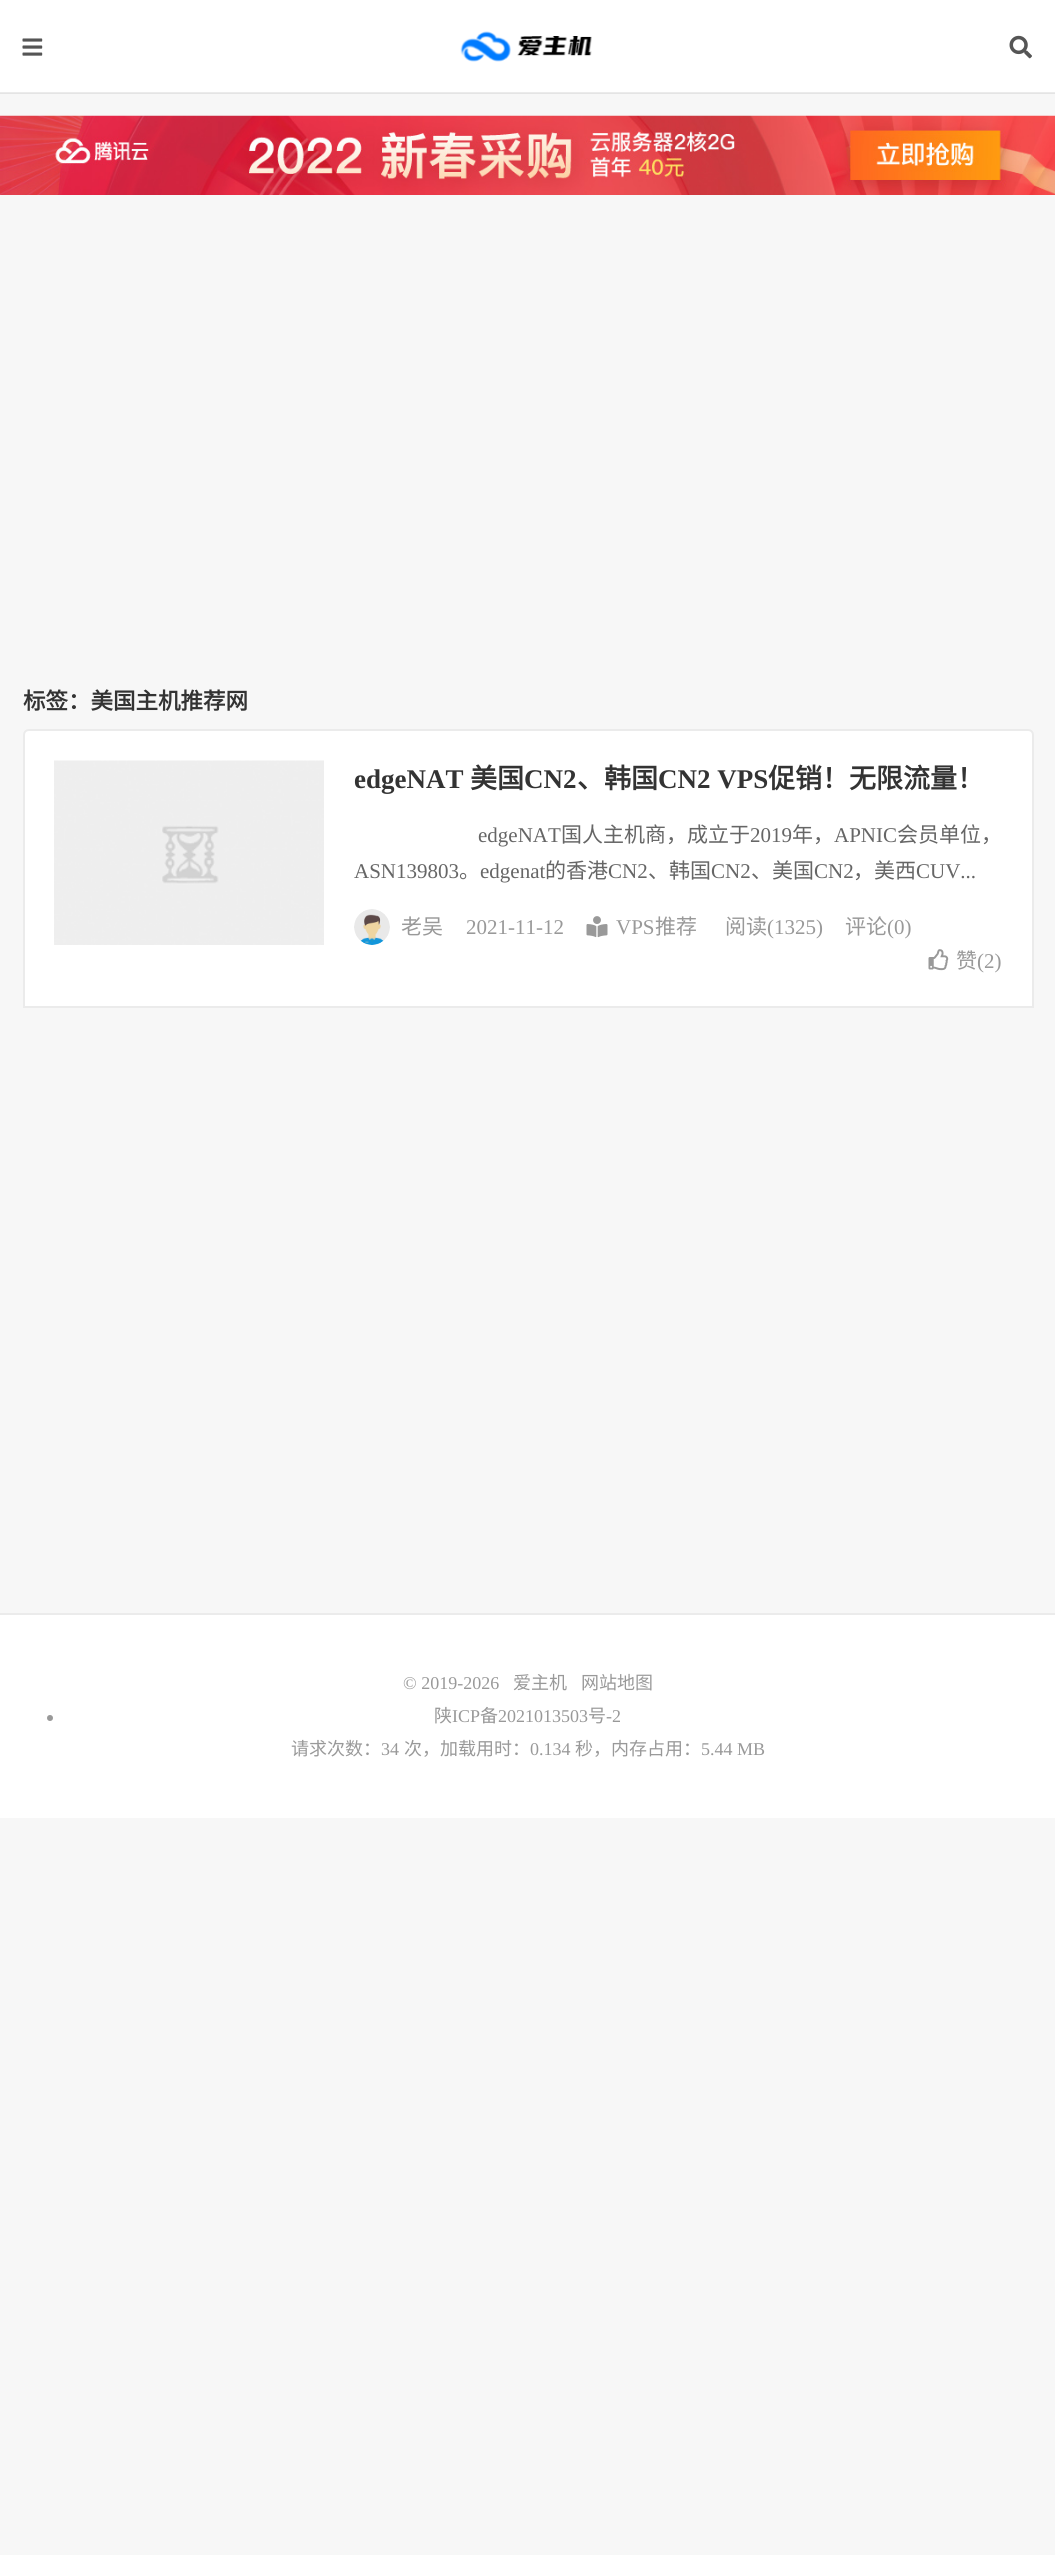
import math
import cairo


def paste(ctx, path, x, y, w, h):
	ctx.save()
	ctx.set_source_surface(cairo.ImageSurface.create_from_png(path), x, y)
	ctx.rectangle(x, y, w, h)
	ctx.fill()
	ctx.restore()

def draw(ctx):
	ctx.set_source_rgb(0.965, 0.965, 0.965)
	ctx.paint()
	ctx.set_source_rgb(1, 1, 1)
	ctx.rectangle(0, 0, 1055, 93)
	ctx.fill()
	ctx.set_source_rgba(0, 0, 0, 0.08)
	ctx.rectangle(0, 92, 1055, 2)
	ctx.fill()
	paste(ctx, 'media/1.png', 22, 38, 21, 18)
	paste(ctx, 'media/2.png', 460, 31, 132, 31)
	paste(ctx, 'media/3.png', 1009, 35, 23, 24)
	paste(ctx, 'media/4.png', 0, 115, 1055, 80)
	ctx.select_font_face('Noto Sans CJK SC', cairo.FONT_SLANT_NORMAL, cairo.FONT_WEIGHT_BOLD)
	ctx.set_font_size(22.5)
	ctx.set_source_rgb(0.2, 0.2, 0.2)
	ctx.move_to(23, 709)
	ctx.show_text('标签：美国主机推荐网')
	ctx.set_source_rgb(1, 1, 1)
	ctx.new_path()
	ctx.move_to(29, 730)
	ctx.line_to(1028, 730)
	ctx.curve_to(1031, 730, 1033, 732, 1033, 735)
	ctx.line_to(1033, 1007)
	ctx.line_to(24, 1007)
	ctx.line_to(24, 735)
	ctx.curve_to(24, 732, 26, 730, 29, 730)
	ctx.close_path()
	ctx.fill_preserve()
	ctx.set_source_rgb(0.918, 0.918, 0.918)
	ctx.stroke()
	paste(ctx, 'media/5.png', 54, 760, 270, 185)
	ctx.select_font_face('Liberation Serif', cairo.FONT_SLANT_NORMAL, cairo.FONT_WEIGHT_BOLD)
	ctx.set_font_size(27)
	ctx.set_source_rgb(0.2, 0.2, 0.2)
	ctx.move_to(354, 788)
	ctx.show_text('edgeNAT')
	ctx.select_font_face('Noto Sans CJK SC', cairo.FONT_SLANT_NORMAL, cairo.FONT_WEIGHT_BOLD)
	ctx.move_to(470, 788)
	ctx.show_text('美国')
	ctx.select_font_face('Liberation Serif', cairo.FONT_SLANT_NORMAL, cairo.FONT_WEIGHT_BOLD)
	ctx.move_to(524, 788)
	ctx.show_text('CN2')
	ctx.select_font_face('Noto Sans CJK SC', cairo.FONT_SLANT_NORMAL, cairo.FONT_WEIGHT_BOLD)
	ctx.move_to(577, 788)
	ctx.show_text('、韩国')
	ctx.select_font_face('Liberation Serif', cairo.FONT_SLANT_NORMAL, cairo.FONT_WEIGHT_BOLD)
	ctx.move_to(658, 788)
	ctx.show_text('CN2 VPS')
	ctx.select_font_face('Noto Sans CJK SC', cairo.FONT_SLANT_NORMAL, cairo.FONT_WEIGHT_BOLD)
	ctx.move_to(768, 788)
	ctx.show_text('促销！无限流量！')
	ctx.select_font_face('Liberation Serif')
	ctx.set_font_size(21)
	ctx.set_source_rgb(0.4, 0.4, 0.4)
	ctx.move_to(478, 842)
	ctx.show_text('edgeNAT')
	ctx.select_font_face('Noto Sans CJK SC')
	ctx.move_to(561, 842)
	ctx.show_text('国人主机商，成立于')
	ctx.select_font_face('Liberation Serif')
	ctx.move_to(750, 842)
	ctx.show_text('2019')
	ctx.select_font_face('Noto Sans CJK SC')
	ctx.move_to(792, 842)
	ctx.show_text('年，')
	ctx.select_font_face('Liberation Serif')
	ctx.move_to(834, 842)
	ctx.show_text('APNIC')
	ctx.select_font_face('Noto Sans CJK SC')
	ctx.move_to(897, 842)
	ctx.show_text('会员单位，')
	ctx.select_font_face('Liberation Serif')
	ctx.move_to(354, 878)
	ctx.show_text('ASN139803')
	ctx.select_font_face('Noto Sans CJK SC')
	ctx.move_to(459, 878)
	ctx.show_text('。')
	ctx.select_font_face('Liberation Serif')
	ctx.move_to(480, 878)
	ctx.show_text('edgenat')
	ctx.select_font_face('Noto Sans CJK SC')
	ctx.move_to(545, 878)
	ctx.show_text('的香港')
	ctx.select_font_face('Liberation Serif')
	ctx.move_to(608, 878)
	ctx.show_text('CN2')
	ctx.select_font_face('Noto Sans CJK SC')
	ctx.move_to(648, 878)
	ctx.show_text('、韩国')
	ctx.select_font_face('Liberation Serif')
	ctx.move_to(711, 878)
	ctx.show_text('CN2')
	ctx.select_font_face('Noto Sans CJK SC')
	ctx.move_to(751, 878)
	ctx.show_text('、美国')
	ctx.select_font_face('Liberation Serif')
	ctx.move_to(814, 878)
	ctx.show_text('CN2')
	ctx.select_font_face('Noto Sans CJK SC')
	ctx.move_to(853, 878)
	ctx.show_text('，美西')
	ctx.select_font_face('Liberation Serif')
	ctx.move_to(916, 878)
	ctx.show_text('CUV...')
	paste(ctx, 'media/6.png', 354, 909, 36, 36)
	ctx.select_font_face('Noto Sans CJK SC')
	ctx.set_source_rgb(0.6, 0.6, 0.6)
	ctx.move_to(401, 934)
	ctx.show_text('老吴')
	ctx.select_font_face('Liberation Serif')
	ctx.move_to(466, 934)
	ctx.show_text('2021-11-12')
	paste(ctx, 'media/7.png', 586, 916, 22, 22)
	ctx.move_to(616, 934)
	ctx.show_text('VPS')
	ctx.select_font_face('Noto Sans CJK SC')
	ctx.move_to(655, 934)
	ctx.show_text('推荐')
	ctx.move_to(725, 934)
	ctx.show_text('阅读')
	ctx.select_font_face('Liberation Serif')
	ctx.move_to(767, 934)
	ctx.show_text('(1325)')
	ctx.select_font_face('Noto Sans CJK SC')
	ctx.move_to(845, 934)
	ctx.show_text('评论')
	ctx.select_font_face('Liberation Serif')
	ctx.move_to(887, 934)
	ctx.show_text('(0)')
	paste(ctx, 'media/8.png', 928, 949, 21, 22)
	ctx.select_font_face('Noto Sans CJK SC')
	ctx.move_to(956, 968)
	ctx.show_text('赞')
	ctx.select_font_face('Liberation Serif')
	ctx.move_to(977, 968)
	ctx.show_text('(2)')
	ctx.set_source_rgb(1, 1, 1)
	ctx.rectangle(0, 1615, 1055, 203)
	ctx.fill()
	ctx.set_source_rgb(0.918, 0.918, 0.918)
	ctx.rectangle(0, 1613, 1055, 2)
	ctx.fill()
	ctx.set_font_size(18)
	ctx.set_source_rgb(0.6, 0.6, 0.6)
	ctx.move_to(403, 1689)
	ctx.show_text('© 2019-2026')
	ctx.select_font_face('Noto Sans CJK SC')
	ctx.move_to(513, 1689)
	ctx.show_text('爱主机')
	ctx.move_to(581, 1689)
	ctx.show_text('网站地图')
	ctx.new_path()
	ctx.arc(50, 1718, 3, 0, 2 * math.pi)
	ctx.fill()
	ctx.move_to(434, 1722)
	ctx.show_text('陕')
	ctx.select_font_face('Liberation Serif')
	ctx.move_to(452, 1722)
	ctx.show_text('ICP')
	ctx.select_font_face('Noto Sans CJK SC')
	ctx.move_to(480, 1722)
	ctx.show_text('备')
	ctx.select_font_face('Liberation Serif')
	ctx.move_to(498, 1722)
	ctx.show_text('2021013503')
	ctx.select_font_face('Noto Sans CJK SC')
	ctx.move_to(588, 1722)
	ctx.show_text('号')
	ctx.select_font_face('Liberation Serif')
	ctx.move_to(606, 1722)
	ctx.show_text('-2')
	ctx.select_font_face('Noto Sans CJK SC')
	ctx.move_to(291, 1755)
	ctx.show_text('请求次数：')
	ctx.select_font_face('Liberation Serif')
	ctx.move_to(381, 1755)
	ctx.show_text('34')
	ctx.select_font_face('Noto Sans CJK SC')
	ctx.move_to(404, 1755)
	ctx.show_text('次，加载用时：')
	ctx.select_font_face('Liberation Serif')
	ctx.move_to(530, 1755)
	ctx.show_text('0.134')
	ctx.select_font_face('Noto Sans CJK SC')
	ctx.move_to(575, 1755)
	ctx.show_text('秒，内存占用：')
	ctx.select_font_face('Liberation Serif')
	ctx.move_to(701, 1755)
	ctx.show_text('5.44 MB')


surface = cairo.ImageSurface(cairo.FORMAT_RGB24, 1055, 2555)
ctx = cairo.Context(surface)
options = cairo.FontOptions()
options.set_hint_metrics(cairo.HINT_METRICS_OFF)
options.set_hint_style(cairo.HINT_STYLE_NONE)
ctx.set_font_options(options)
ctx.set_miter_limit(4)
draw(ctx)
surface.write_to_png('image.png')
